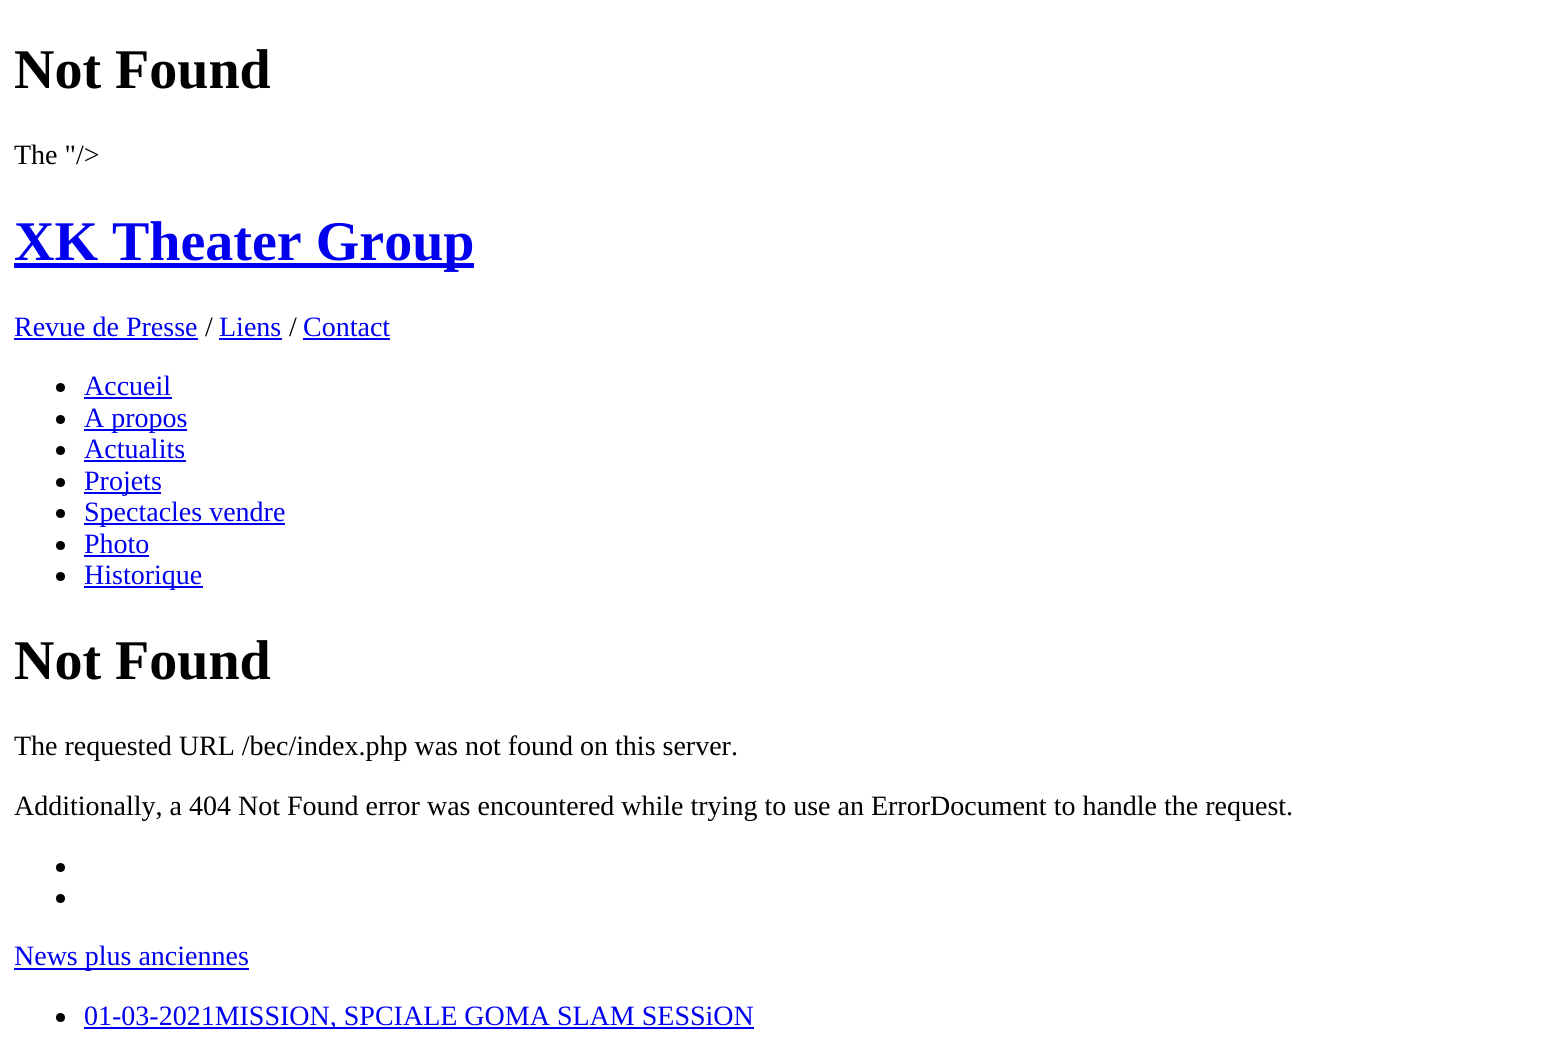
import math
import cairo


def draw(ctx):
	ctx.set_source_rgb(1, 1, 1)
	ctx.paint()
	ctx.select_font_face('Liberation Serif', cairo.FONT_SLANT_NORMAL, cairo.FONT_WEIGHT_BOLD)
	ctx.set_font_size(56)
	ctx.set_source_rgb(0, 0, 0)
	ctx.move_to(14, 88)
	ctx.show_text('Not Found')
	ctx.select_font_face('Liberation Serif')
	ctx.set_font_size(28)
	ctx.move_to(14, 164)
	ctx.show_text('The "/>')
	ctx.set_source_rgb(0, 0, 0.933)
	ctx.rectangle(14, 263, 460, 5)
	ctx.fill()
	ctx.select_font_face('Liberation Serif', cairo.FONT_SLANT_NORMAL, cairo.FONT_WEIGHT_BOLD)
	ctx.set_font_size(56)
	ctx.move_to(14, 260)
	ctx.show_text('XK Theater Group')
	ctx.select_font_face('Liberation Serif')
	ctx.set_font_size(28)
	ctx.move_to(14, 336)
	ctx.show_text('Revue de Presse')
	ctx.rectangle(14, 338, 184, 2)
	ctx.fill()
	ctx.set_source_rgb(0, 0, 0)
	ctx.move_to(205, 336)
	ctx.show_text('/')
	ctx.set_source_rgb(0, 0, 0.933)
	ctx.move_to(219, 336)
	ctx.show_text('Liens')
	ctx.rectangle(219, 338, 63, 2)
	ctx.fill()
	ctx.set_source_rgb(0, 0, 0)
	ctx.move_to(289, 336)
	ctx.show_text('/')
	ctx.set_source_rgb(0, 0, 0.933)
	ctx.move_to(303, 336)
	ctx.show_text('Contact')
	ctx.rectangle(303, 338, 87, 2)
	ctx.fill()
	ctx.set_source_rgb(0, 0, 0)
	ctx.arc(60.5, 387.5, 4.5, 0, 2 * math.pi)
	ctx.fill()
	ctx.set_source_rgb(0, 0, 0.933)
	ctx.move_to(84, 395)
	ctx.show_text('Accueil')
	ctx.rectangle(84, 397, 88, 2)
	ctx.fill()
	ctx.set_source_rgb(0, 0, 0)
	ctx.arc(60.5, 419.5, 4.5, 0, 2 * math.pi)
	ctx.fill()
	ctx.set_source_rgb(0, 0, 0.933)
	ctx.rectangle(84, 429, 103, 2)
	ctx.fill()
	ctx.move_to(84, 427)
	ctx.show_text('A propos')
	ctx.set_source_rgb(0, 0, 0)
	ctx.new_path()
	ctx.arc(60.5, 450.5, 4.5, 0, 2 * math.pi)
	ctx.fill()
	ctx.set_source_rgb(0, 0, 0.933)
	ctx.move_to(84, 458)
	ctx.show_text('Actualits')
	ctx.rectangle(84, 460, 102, 2)
	ctx.fill()
	ctx.set_source_rgb(0, 0, 0)
	ctx.arc(60.5, 482.5, 4.5, 0, 2 * math.pi)
	ctx.fill()
	ctx.set_source_rgb(0, 0, 0.933)
	ctx.rectangle(84, 492, 77, 2)
	ctx.fill()
	ctx.move_to(84, 490)
	ctx.show_text('Projets')
	ctx.set_source_rgb(0, 0, 0)
	ctx.new_path()
	ctx.arc(60.5, 513.5, 4.5, 0, 2 * math.pi)
	ctx.fill()
	ctx.set_source_rgb(0, 0, 0.933)
	ctx.rectangle(84, 523, 201, 2)
	ctx.fill()
	ctx.move_to(84, 521)
	ctx.show_text('Spectacles vendre')
	ctx.set_source_rgb(0, 0, 0)
	ctx.new_path()
	ctx.arc(60.5, 545.5, 4.5, 0, 2 * math.pi)
	ctx.fill()
	ctx.set_source_rgb(0, 0, 0.933)
	ctx.move_to(84, 553)
	ctx.show_text('Photo')
	ctx.rectangle(84, 555, 65, 2)
	ctx.fill()
	ctx.set_source_rgb(0, 0, 0)
	ctx.arc(60.5, 576.5, 4.5, 0, 2 * math.pi)
	ctx.fill()
	ctx.set_source_rgb(0, 0, 0.933)
	ctx.rectangle(84, 586, 119, 2)
	ctx.fill()
	ctx.move_to(84, 584)
	ctx.show_text('Historique')
	ctx.select_font_face('Liberation Serif', cairo.FONT_SLANT_NORMAL, cairo.FONT_WEIGHT_BOLD)
	ctx.set_font_size(56)
	ctx.set_source_rgb(0, 0, 0)
	ctx.move_to(14, 679)
	ctx.show_text('Not Found')
	ctx.select_font_face('Liberation Serif')
	ctx.set_font_size(28)
	ctx.move_to(14, 755)
	ctx.show_text('The requested URL /bec/index.php was not found on this server.')
	ctx.move_to(14, 815)
	ctx.show_text('Additionally, a 404 Not Found error was encountered while trying to use an ErrorDocument to handle the request.')
	ctx.new_path()
	ctx.arc(60.5, 867.5, 4.5, 0, 2 * math.pi)
	ctx.fill()
	ctx.arc(60.5, 898.5, 4.5, 0, 2 * math.pi)
	ctx.fill()
	ctx.set_source_rgb(0, 0, 0.933)
	ctx.rectangle(14, 968, 235, 2)
	ctx.fill()
	ctx.move_to(14, 965)
	ctx.show_text('News plus anciennes')
	ctx.set_source_rgb(0, 0, 0)
	ctx.new_path()
	ctx.arc(60.5, 1017.5, 4.5, 0, 2 * math.pi)
	ctx.fill()
	ctx.set_source_rgb(0, 0, 0.933)
	ctx.rectangle(84, 1027, 670, 2)
	ctx.fill()
	ctx.move_to(84, 1025)
	ctx.show_text('01-03-2021MISSION, SPCIALE GOMA SLAM SESSiON')


surface = cairo.ImageSurface(cairo.FORMAT_RGB24, 1548, 1043)
ctx = cairo.Context(surface)
options = cairo.FontOptions()
options.set_hint_metrics(cairo.HINT_METRICS_OFF)
options.set_hint_style(cairo.HINT_STYLE_NONE)
ctx.set_font_options(options)
ctx.set_miter_limit(4)
draw(ctx)
surface.write_to_png('image.png')
